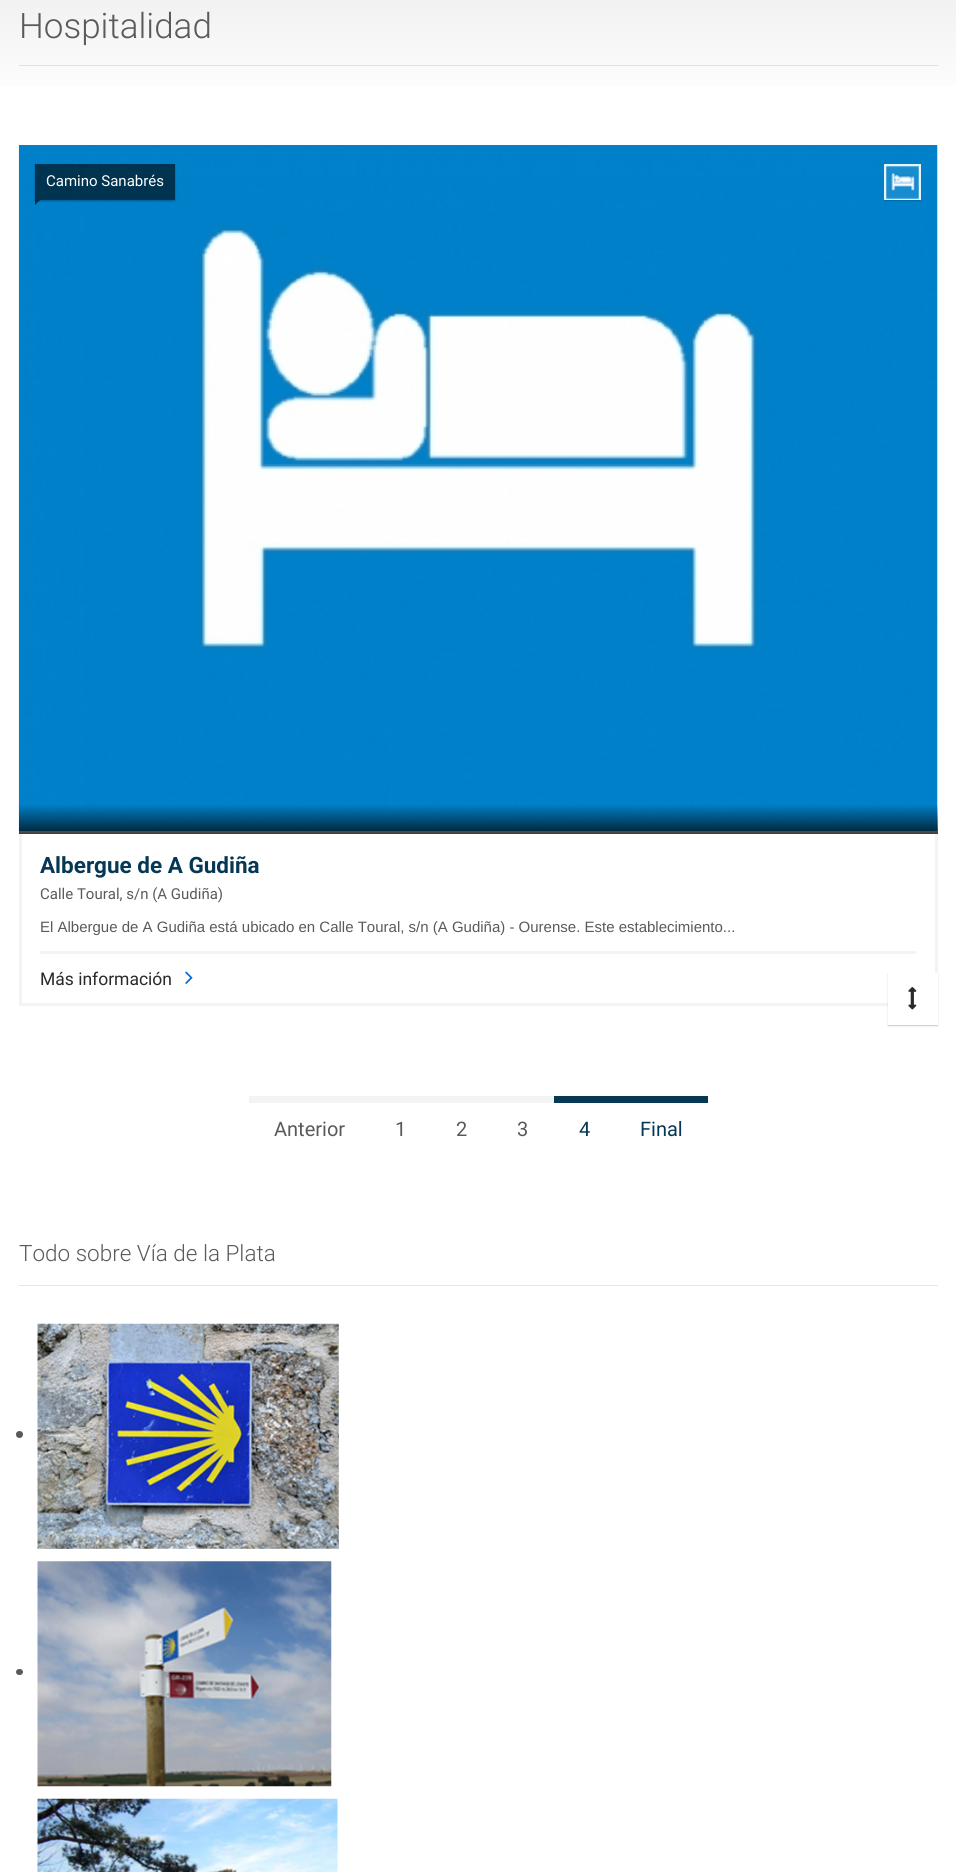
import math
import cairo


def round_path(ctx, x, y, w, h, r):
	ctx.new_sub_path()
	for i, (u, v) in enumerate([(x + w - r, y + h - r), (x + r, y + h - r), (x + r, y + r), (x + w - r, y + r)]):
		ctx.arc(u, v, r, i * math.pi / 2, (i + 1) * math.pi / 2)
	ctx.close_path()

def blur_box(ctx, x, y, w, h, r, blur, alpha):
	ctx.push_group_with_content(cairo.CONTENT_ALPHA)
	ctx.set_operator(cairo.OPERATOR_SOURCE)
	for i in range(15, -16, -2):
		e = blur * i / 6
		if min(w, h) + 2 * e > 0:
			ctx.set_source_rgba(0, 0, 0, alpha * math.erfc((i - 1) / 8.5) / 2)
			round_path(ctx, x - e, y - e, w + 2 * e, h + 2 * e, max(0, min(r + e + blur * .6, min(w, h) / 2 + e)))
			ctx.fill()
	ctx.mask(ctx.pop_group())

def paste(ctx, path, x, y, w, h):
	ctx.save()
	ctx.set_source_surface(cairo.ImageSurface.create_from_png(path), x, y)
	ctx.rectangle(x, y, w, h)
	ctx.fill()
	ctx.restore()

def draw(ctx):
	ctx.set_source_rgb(1, 1, 1)
	ctx.paint()
	gradient = cairo.LinearGradient(478, -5, 478, 133)
	gradient.add_color_stop_rgba(0, 0.945, 0.945, 0.945, 1)
	gradient.add_color_stop_rgba(0.8, 1, 1, 1, 1)
	ctx.set_source(gradient)
	ctx.rectangle(0, 0, 956, 86)
	ctx.fill()
	ctx.set_source_rgb(0.882, 0.882, 0.882)
	ctx.rectangle(19, 65, 919, 1)
	ctx.fill()
	ctx.select_font_face('Roboto Light')
	ctx.set_font_size(35)
	ctx.set_source_rgb(0.353, 0.353, 0.353)
	ctx.move_to(19, 38)
	ctx.show_text('Hospitalidad')
	paste(ctx, 'media/1.png', 18, 145, 920, 689)
	ctx.save()
	ctx.set_fill_rule(cairo.FILL_RULE_EVEN_ODD)
	ctx.new_path()
	ctx.move_to(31, 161)
	ctx.line_to(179, 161)
	ctx.line_to(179, 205)
	ctx.line_to(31, 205)
	ctx.close_path()
	ctx.move_to(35, 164)
	ctx.line_to(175, 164)
	ctx.line_to(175, 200)
	ctx.line_to(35, 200)
	ctx.close_path()
	ctx.clip()
	ctx.set_source_rgb(0, 0, 0)
	blur_box(ctx, 35, 165, 140, 36, 0, 1, 0.3)
	ctx.restore()
	ctx.set_source_rgba(0, 0, 0, 0.6)
	ctx.rectangle(35, 164, 140, 36)
	ctx.fill()
	ctx.select_font_face('Roboto')
	ctx.set_font_size(15)
	ctx.set_source_rgb(1, 1, 1)
	ctx.move_to(46, 186)
	ctx.show_text('Camino Sanabrés')
	ctx.set_source_rgba(0, 0, 0, 0.6)
	ctx.new_path()
	ctx.move_to(35, 200)
	ctx.line_to(40, 200)
	ctx.line_to(35, 205)
	ctx.close_path()
	ctx.fill()
	ctx.save()
	ctx.rectangle(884, 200, 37, 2)
	ctx.clip()
	ctx.set_source_rgb(0, 0.051, 0.078)
	blur_box(ctx, 884, 165, 37, 36, 0, 0.5, 0.2)
	ctx.restore()
	ctx.set_source_rgba(1, 1, 1, 0.9)
	ctx.rectangle(884, 164, 37, 36)
	ctx.fill()
	paste(ctx, 'media/2.png', 886, 166, 33, 33)
	ctx.rectangle(20.5, 832.5, 916, 172)
	ctx.set_source_rgb(0.953, 0.953, 0.953)
	ctx.set_line_width(3)
	ctx.stroke()
	gradient = cairo.LinearGradient(478, 804, 478, 834)
	gradient.add_color_stop_rgba(0, 0, 0, 0, 0)
	gradient.add_color_stop_rgba(1, 0, 0, 0, 0.75)
	ctx.set_source(gradient)
	ctx.rectangle(19, 805, 919, 29)
	ctx.fill()
	ctx.select_font_face('Roboto', cairo.FONT_SLANT_NORMAL, cairo.FONT_WEIGHT_BOLD)
	ctx.set_font_size(22.5)
	ctx.set_source_rgb(0.027, 0.22, 0.333)
	ctx.move_to(40, 873)
	ctx.show_text('Albergue de A Gudiña')
	ctx.select_font_face('Roboto')
	ctx.set_font_size(15)
	ctx.set_source_rgb(0.353, 0.353, 0.353)
	ctx.move_to(40, 899)
	ctx.show_text('Calle Toural, s/n (A Gudiña)')
	ctx.select_font_face('Liberation Sans')
	ctx.move_to(40, 932)
	ctx.show_text('El Albergue de A Gudiña está ubicado en Calle Toural, s/n (A Gudiña) - Ourense. Este establecimiento...')
	ctx.set_source_rgb(0.953, 0.953, 0.953)
	ctx.rectangle(40, 951, 876, 3)
	ctx.fill()
	ctx.select_font_face('Roboto')
	ctx.set_font_size(17.5)
	ctx.set_source_rgb(0.165, 0.165, 0.165)
	ctx.move_to(40, 985)
	ctx.show_text('Más información')
	paste(ctx, 'media/3.png', 185, 971, 8, 13)
	ctx.set_source_rgb(0.953, 0.953, 0.953)
	ctx.rectangle(249, 1096, 305, 7)
	ctx.fill()
	ctx.set_font_size(20)
	ctx.set_source_rgb(0.353, 0.353, 0.353)
	for x, y, s in [
		(274, 1136, 'Anterior'),
		(395, 1136, '1'),
		(456, 1136, '2'),
		(517, 1136, '3'),
	]:
		ctx.move_to(x, y)
		ctx.show_text(s)
	ctx.set_source_rgb(0.027, 0.22, 0.333)
	ctx.rectangle(554, 1096, 154, 7)
	ctx.fill()
	ctx.move_to(579, 1136)
	ctx.show_text('4')
	ctx.move_to(640, 1136)
	ctx.show_text('Final')
	ctx.set_source_rgb(0.902, 0.902, 0.902)
	ctx.rectangle(19, 1285, 919, 1)
	ctx.fill()
	ctx.select_font_face('Roboto Light')
	ctx.set_font_size(22.5)
	ctx.set_source_rgb(0.353, 0.353, 0.353)
	ctx.move_to(19, 1261)
	ctx.show_text('Todo sobre Vía de la Plata')
	ctx.new_path()
	ctx.arc(19.5, 1434.5, 3.5, 0, 2 * math.pi)
	ctx.fill()
	paste(ctx, 'media/4.png', 37, 1323, 302, 226)
	round_path(ctx, 16, 1669, 7, 6, 3)
	ctx.fill()
	paste(ctx, 'media/5.png', 37, 1561, 295, 226)
	paste(ctx, 'media/6.png', 37, 1798, 301, 74)
	ctx.set_source_rgb(0, 0, 0)
	blur_box(ctx, 888, 974, 50, 52, 0, 0.5, 0.2)
	ctx.set_source_rgb(1, 1, 1)
	ctx.rectangle(888, 973, 50, 52)
	ctx.fill()
	paste(ctx, 'media/7.png', 908, 987, 9, 23)


surface = cairo.ImageSurface(cairo.FORMAT_RGB24, 956, 1872)
ctx = cairo.Context(surface)
options = cairo.FontOptions()
options.set_hint_metrics(cairo.HINT_METRICS_OFF)
options.set_hint_style(cairo.HINT_STYLE_NONE)
ctx.set_font_options(options)
ctx.set_miter_limit(4)
draw(ctx)
surface.write_to_png('image.png')
